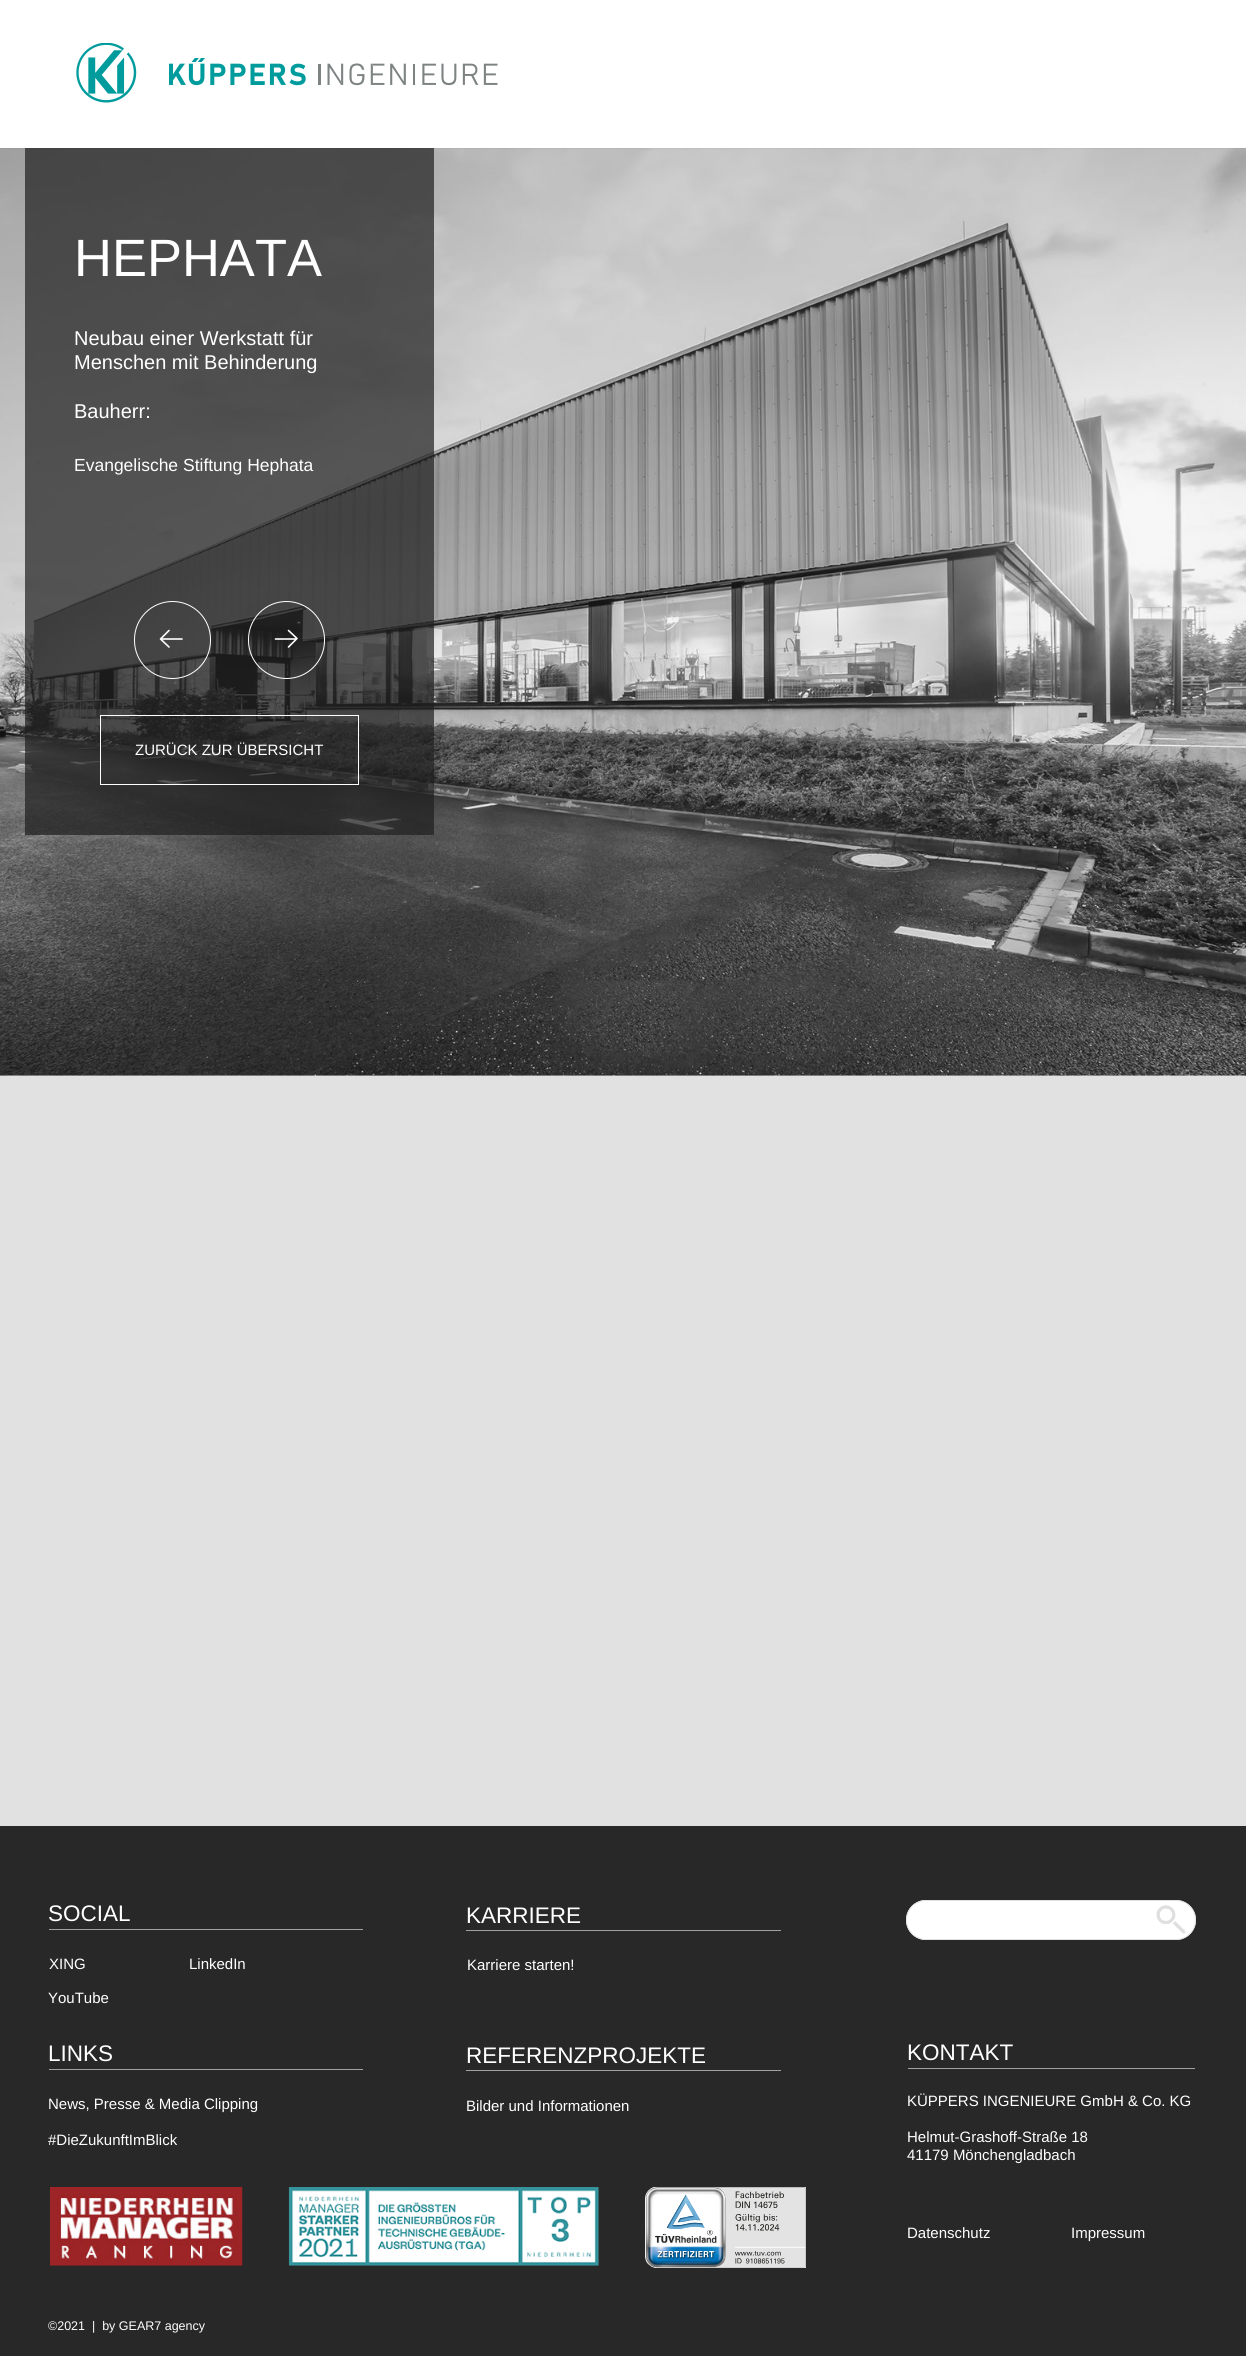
import math
import cairo


def round_path(ctx, x, y, w, h, r):
	ctx.new_sub_path()
	for i, (u, v) in enumerate([(x + w - r, y + h - r), (x + r, y + h - r), (x + r, y + r), (x + w - r, y + r)]):
		ctx.arc(u, v, r, i * math.pi / 2, (i + 1) * math.pi / 2)
	ctx.close_path()

def blur_box(ctx, x, y, w, h, r, blur, alpha):
	ctx.push_group_with_content(cairo.CONTENT_ALPHA)
	ctx.set_operator(cairo.OPERATOR_SOURCE)
	for i in range(15, -16, -2):
		e = blur * i / 6
		if min(w, h) + 2 * e > 0:
			ctx.set_source_rgba(0, 0, 0, alpha * math.erfc((i - 1) / 8.5) / 2)
			round_path(ctx, x - e, y - e, w + 2 * e, h + 2 * e, max(0, min(r + e + blur * .6, min(w, h) / 2 + e)))
			ctx.fill()
	ctx.mask(ctx.pop_group())

def paste(ctx, path, x, y, w, h):
	ctx.save()
	ctx.set_source_surface(cairo.ImageSurface.create_from_png(path), x, y)
	ctx.rectangle(x, y, w, h)
	ctx.fill()
	ctx.restore()

def draw(ctx):
	ctx.set_source_rgb(0.882, 0.882, 0.882)
	ctx.paint()
	paste(ctx, 'media/2.png', 0, 148, 1246, 928)
	ctx.set_source_rgba(0.118, 0.118, 0.118, 0.7)
	ctx.rectangle(25, 148, 409, 687)
	ctx.fill()
	ctx.set_source_rgb(0, 0, 0)
	blur_box(ctx, 1, -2, 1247, 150, 0, 1, 0.1)
	ctx.set_source_rgb(1, 1, 1)
	ctx.rectangle(0, 0, 1246, 148)
	ctx.fill()
	paste(ctx, 'media/1.png', 76, 43, 422, 60)
	ctx.select_font_face('Liberation Sans')
	ctx.set_font_size(52.5)
	ctx.move_to(74, 276)
	ctx.show_text('HEPHATA')
	ctx.set_font_size(20)
	for x, y, s in [
		(74, 345, 'Neubau einer Werkstatt für'),
		(74, 369, 'Menschen mit Behinderung'),
		(74, 418, 'Bauherr:'),
	]:
		ctx.move_to(x, y)
		ctx.show_text(s)
	ctx.set_font_size(17.5)
	ctx.move_to(74, 471)
	ctx.show_text('Evangelische Stiftung Hephata')
	round_path(ctx, 134.5, 601.5, 76, 77, 38)
	ctx.set_line_width(1)
	ctx.stroke()
	ctx.new_path()
	ctx.move_to(162, 639)
	ctx.line_to(182, 639)
	ctx.move_to(169, 630.5)
	ctx.line_to(160.5, 639)
	ctx.line_to(169, 647)
	ctx.set_line_width(1.6)
	ctx.set_line_cap(cairo.LINE_CAP_ROUND)
	ctx.set_line_join(cairo.LINE_JOIN_ROUND)
	ctx.stroke()
	round_path(ctx, 248.5, 601.5, 76, 77, 38)
	ctx.set_line_width(1)
	ctx.set_line_cap(cairo.LINE_CAP_BUTT)
	ctx.set_line_join(cairo.LINE_JOIN_MITER)
	ctx.stroke()
	ctx.new_path()
	ctx.move_to(295.5, 639)
	ctx.line_to(275.5, 639)
	ctx.move_to(288.5, 647)
	ctx.line_to(297, 638.5)
	ctx.line_to(288.5, 630.5)
	ctx.set_line_width(1.6)
	ctx.set_line_cap(cairo.LINE_CAP_ROUND)
	ctx.set_line_join(cairo.LINE_JOIN_ROUND)
	ctx.stroke()
	ctx.rectangle(100.5, 715.5, 258, 69)
	ctx.set_line_width(1)
	ctx.set_line_cap(cairo.LINE_CAP_BUTT)
	ctx.set_line_join(cairo.LINE_JOIN_MITER)
	ctx.stroke()
	ctx.set_font_size(15)
	ctx.move_to(135, 755)
	ctx.show_text('ZURÜCK ZUR ÜBERSICHT')
	ctx.set_source_rgb(0.157, 0.157, 0.157)
	ctx.rectangle(0, 1826, 1246, 530)
	ctx.fill()
	ctx.set_source_rgb(0.635, 0.635, 0.635)
	ctx.rectangle(49, 1929, 314, 1)
	ctx.fill()
	ctx.set_font_size(22.5)
	ctx.set_source_rgb(1, 1, 1)
	ctx.move_to(48, 1921)
	ctx.show_text('SOCIAL')
	ctx.set_source_rgb(0.635, 0.635, 0.635)
	ctx.rectangle(466, 1930, 315, 1)
	ctx.fill()
	ctx.set_source_rgb(1, 1, 1)
	ctx.move_to(466, 1923)
	ctx.show_text('KARRIERE')
	ctx.set_font_size(15)
	for x, y, s in [
		(49, 1969, 'XING'),
		(189, 1969, 'LinkedIn'),
		(467, 1970, 'Karriere starten!'),
		(48, 2003, 'YouTube'),
	]:
		ctx.move_to(x, y)
		ctx.show_text(s)
	ctx.set_source_rgb(0.635, 0.635, 0.635)
	ctx.rectangle(49, 2069, 314, 1)
	ctx.fill()
	ctx.set_font_size(22.5)
	ctx.set_source_rgb(1, 1, 1)
	ctx.move_to(48, 2061)
	ctx.show_text('LINKS')
	ctx.set_source_rgb(0.635, 0.635, 0.635)
	ctx.rectangle(466, 2070, 315, 1)
	ctx.fill()
	ctx.set_source_rgb(1, 1, 1)
	ctx.move_to(466, 2063)
	ctx.show_text('REFERENZPROJEKTE')
	ctx.set_font_size(15)
	for x, y, s in [
		(48, 2109, 'News, Presse & Media Clipping'),
		(48, 2145, '#DieZukunftImBlick'),
		(466, 2111, 'Bilder und Informationen'),
	]:
		ctx.move_to(x, y)
		ctx.show_text(s)
	paste(ctx, 'media/3.png', 50, 2187, 193, 79)
	paste(ctx, 'media/4.png', 288, 2187, 311, 79)
	paste(ctx, 'media/5.png', 645, 2187, 161, 81)
	ctx.set_font_size(12.5)
	ctx.move_to(48, 2330)
	ctx.show_text('©2021  |  by GEAR7 agency')
	round_path(ctx, 906, 1900, 290, 40, 20)
	ctx.fill()
	paste(ctx, 'media/6.png', 1156, 1905, 30, 29)
	round_path(ctx, 906.5, 1900.5, 289, 39, 19.5)
	ctx.set_source_rgb(0.882, 0.882, 0.882)
	ctx.stroke()
	ctx.set_source_rgb(0.635, 0.635, 0.635)
	ctx.rectangle(908, 2068, 287, 1)
	ctx.fill()
	ctx.set_font_size(22.5)
	ctx.set_source_rgb(1, 1, 1)
	ctx.move_to(907, 2060)
	ctx.show_text('KONTAKT')
	ctx.set_font_size(15)
	for x, y, s in [
		(907, 2106, 'KÜPPERS INGENIEURE GmbH & Co. KG'),
		(907, 2142, 'Helmut-Grashoff-Straße 18'),
		(907, 2160, '41179 Mönchengladbach'),
		(907, 2238, 'Datenschutz'),
		(1071, 2238, 'Impressum'),
	]:
		ctx.move_to(x, y)
		ctx.show_text(s)


surface = cairo.ImageSurface(cairo.FORMAT_RGB24, 1246, 2356)
ctx = cairo.Context(surface)
options = cairo.FontOptions()
options.set_hint_metrics(cairo.HINT_METRICS_OFF)
options.set_hint_style(cairo.HINT_STYLE_NONE)
ctx.set_font_options(options)
ctx.set_miter_limit(4)
draw(ctx)
surface.write_to_png('image.png')
